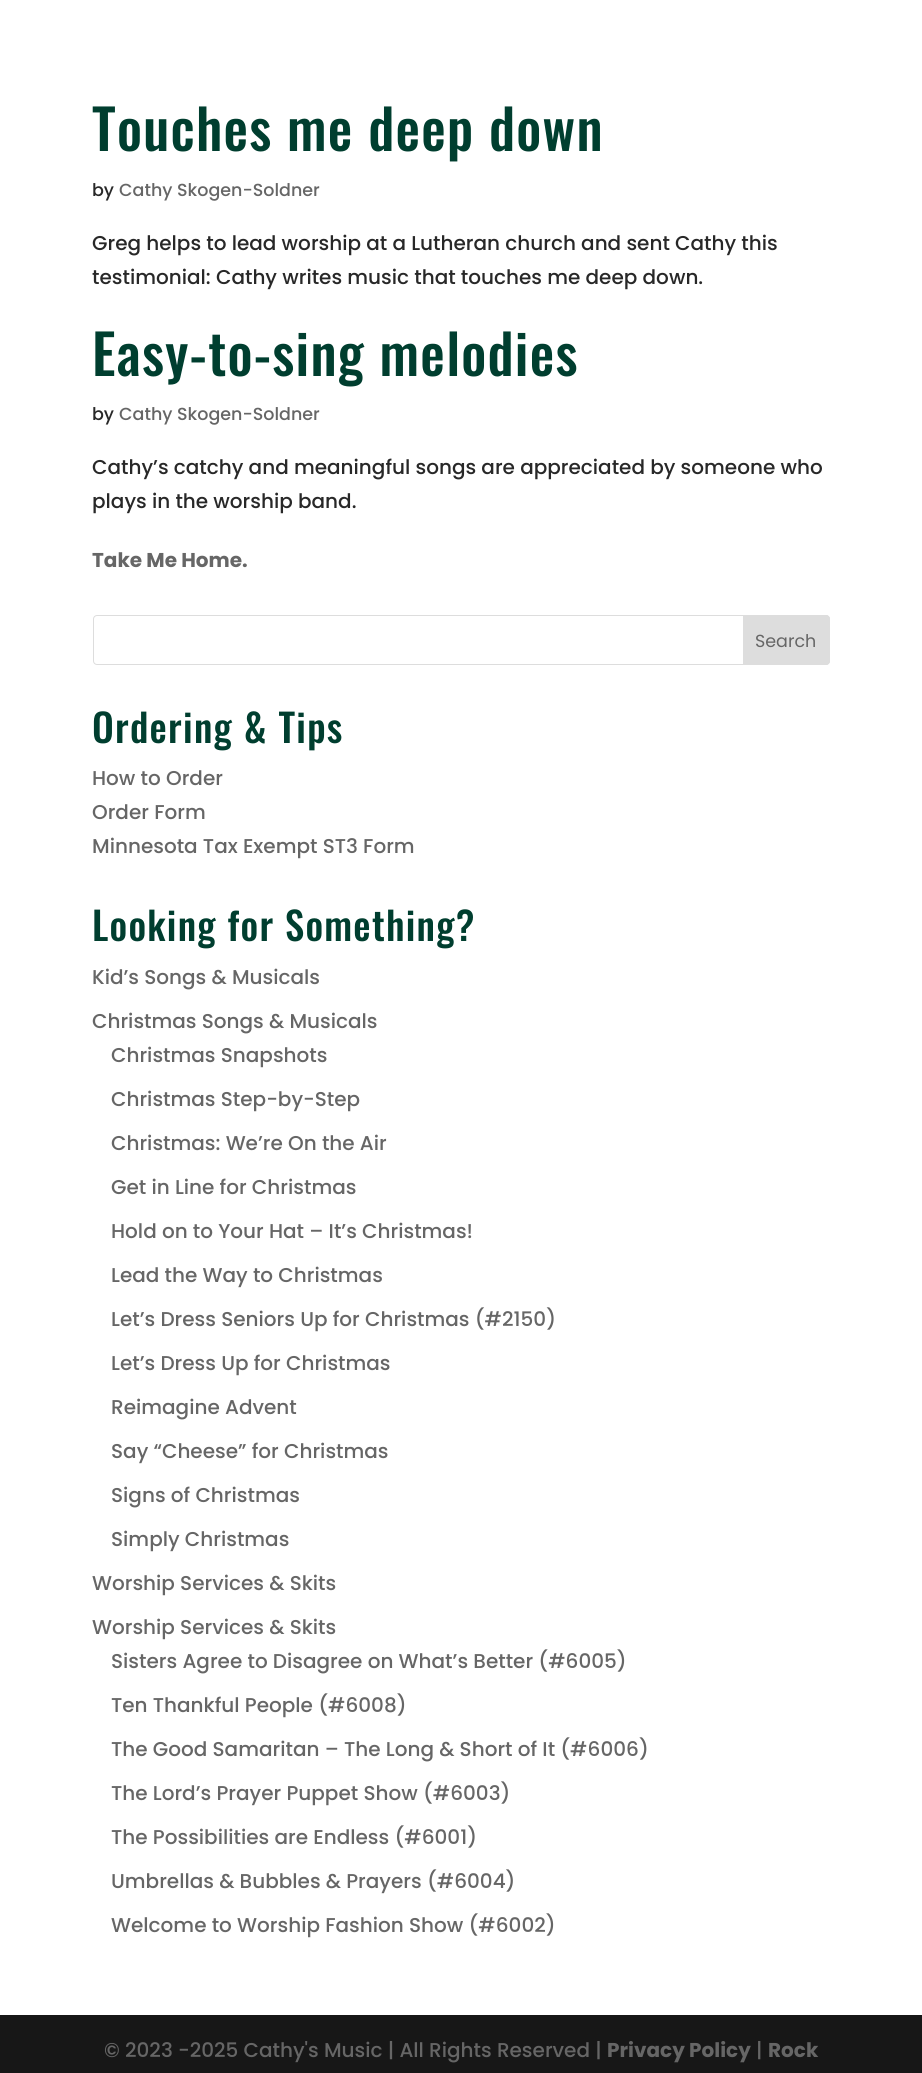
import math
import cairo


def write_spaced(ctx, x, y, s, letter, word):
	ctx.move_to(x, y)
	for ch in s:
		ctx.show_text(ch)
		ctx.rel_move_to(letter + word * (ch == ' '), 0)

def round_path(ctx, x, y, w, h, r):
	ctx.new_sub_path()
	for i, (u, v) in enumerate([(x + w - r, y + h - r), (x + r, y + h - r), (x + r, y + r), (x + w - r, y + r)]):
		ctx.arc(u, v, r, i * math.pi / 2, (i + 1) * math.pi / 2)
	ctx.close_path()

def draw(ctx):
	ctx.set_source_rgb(1, 1, 1)
	ctx.paint()
	ctx.select_font_face('Oswald Medium')
	ctx.set_font_size(55)
	ctx.set_source_rgb(0, 0.243, 0.184)
	write_spaced(ctx, 92, 151, 'Touches me deep down', 1.25, 0)
	ctx.select_font_face('Poppins Medium')
	ctx.set_font_size(17.5)
	ctx.set_source_rgb(0.157, 0.157, 0.157)
	ctx.move_to(92, 196)
	ctx.show_text('by')
	ctx.set_source_rgb(0.4, 0.4, 0.4)
	ctx.move_to(119, 196)
	ctx.show_text('Cathy Skogen-Soldner')
	ctx.set_font_size(20)
	ctx.set_source_rgb(0.157, 0.157, 0.157)
	ctx.move_to(92, 250)
	ctx.show_text('Greg helps to lead worship at a Lutheran church and sent Cathy this')
	ctx.move_to(92, 284)
	ctx.show_text('testimonial: Cathy writes music that touches me deep down.')
	ctx.select_font_face('Oswald Medium')
	ctx.set_font_size(55)
	ctx.set_source_rgb(0, 0.243, 0.184)
	write_spaced(ctx, 92, 376, 'Easy-to-sing melodies', 1.25, 0)
	ctx.select_font_face('Poppins Medium')
	ctx.set_font_size(17.5)
	ctx.set_source_rgb(0.157, 0.157, 0.157)
	ctx.move_to(92, 420)
	ctx.show_text('by')
	ctx.set_source_rgb(0.4, 0.4, 0.4)
	ctx.move_to(119, 420)
	ctx.show_text('Cathy Skogen-Soldner')
	ctx.set_font_size(20)
	ctx.set_source_rgb(0.157, 0.157, 0.157)
	ctx.move_to(92, 474)
	ctx.show_text('Cathy’s catchy and meaningful songs are appreciated by someone who')
	ctx.move_to(92, 508)
	ctx.show_text('plays in the worship band.')
	ctx.select_font_face('Poppins', cairo.FONT_SLANT_NORMAL, cairo.FONT_WEIGHT_BOLD)
	ctx.set_source_rgb(0.4, 0.4, 0.4)
	ctx.move_to(92, 567)
	ctx.show_text('Take Me Home.')
	round_path(ctx, 93.5, 615.5, 736, 49, 3.5)
	ctx.set_source_rgb(0.867, 0.867, 0.867)
	ctx.set_line_width(1)
	ctx.stroke()
	ctx.new_path()
	ctx.move_to(743.5, 615.5)
	ctx.line_to(826, 615.5)
	ctx.curve_to(828, 615.5, 829.5, 617, 829.5, 619)
	ctx.line_to(829.5, 661)
	ctx.curve_to(829.5, 663, 828, 664.5, 826, 664.5)
	ctx.line_to(743.5, 664.5)
	ctx.close_path()
	ctx.fill_preserve()
	ctx.stroke()
	ctx.select_font_face('Poppins')
	ctx.set_font_size(17.5)
	ctx.set_source_rgb(0.4, 0.4, 0.4)
	ctx.move_to(755, 647)
	ctx.show_text('Search')
	ctx.select_font_face('Oswald Medium')
	ctx.set_font_size(38.75)
	ctx.set_source_rgb(0, 0.243, 0.184)
	write_spaced(ctx, 92, 743, 'Ordering & Tips', 1.25, 0)
	ctx.select_font_face('Poppins Medium')
	ctx.set_font_size(20)
	ctx.set_source_rgb(0.4, 0.4, 0.4)
	for x, y, s in [
		(92, 785, 'How to Order'),
		(92, 819, 'Order Form'),
		(92, 853, 'Minnesota Tax Exempt ST3 Form'),
	]:
		ctx.move_to(x, y)
		ctx.show_text(s)
	ctx.select_font_face('Oswald Medium')
	ctx.set_font_size(38.75)
	ctx.set_source_rgb(0, 0.243, 0.184)
	write_spaced(ctx, 92, 941, 'Looking for Something?', 1.25, 0)
	ctx.select_font_face('Poppins Medium')
	ctx.set_font_size(20)
	ctx.set_source_rgb(0.4, 0.4, 0.4)
	for x, y, s in [
		(92, 984, 'Kid’s Songs & Musicals'),
		(92, 1028, 'Christmas Songs & Musicals'),
		(111, 1062, 'Christmas Snapshots'),
		(111, 1106, 'Christmas Step-by-Step'),
		(111, 1150, 'Christmas: We’re On the Air'),
		(111, 1194, 'Get in Line for Christmas'),
		(111, 1238, 'Hold on to Your Hat – It’s Christmas!'),
		(111, 1282, 'Lead the Way to Christmas'),
		(111, 1326, 'Let’s Dress Seniors Up for Christmas (#2150)'),
		(111, 1370, 'Let’s Dress Up for Christmas'),
		(111, 1414, 'Reimagine Advent'),
		(111, 1458, 'Say “Cheese” for Christmas'),
		(111, 1502, 'Signs of Christmas'),
		(111, 1546, 'Simply Christmas'),
		(92, 1590, 'Worship Services & Skits'),
		(92, 1634, 'Worship Services & Skits'),
		(111, 1668, 'Sisters Agree to Disagree on What’s Better (#6005)'),
		(111, 1712, 'Ten Thankful People (#6008)'),
		(111, 1756, 'The Good Samaritan – The Long & Short of It (#6006)'),
		(111, 1800, 'The Lord’s Prayer Puppet Show (#6003)'),
		(111, 1844, 'The Possibilities are Endless (#6001)'),
		(111, 1888, 'Umbrellas & Bubbles & Prayers (#6004)'),
		(111, 1932, 'Welcome to Worship Fashion Show (#6002)'),
	]:
		ctx.move_to(x, y)
		ctx.show_text(s)
	ctx.set_source_rgb(0.09, 0.09, 0.09)
	ctx.rectangle(0, 2015, 922, 58)
	ctx.fill()
	ctx.set_source_rgb(0.4, 0.4, 0.4)
	ctx.move_to(104, 2057)
	ctx.show_text('© 2023 -2025 Cathy\'s Music | All Rights Reserved |')
	ctx.select_font_face('Poppins', cairo.FONT_SLANT_NORMAL, cairo.FONT_WEIGHT_BOLD)
	ctx.move_to(607, 2057)
	ctx.show_text('Privacy Policy')
	ctx.select_font_face('Poppins Medium')
	ctx.move_to(756, 2057)
	ctx.show_text('|')
	ctx.select_font_face('Poppins', cairo.FONT_SLANT_NORMAL, cairo.FONT_WEIGHT_BOLD)
	ctx.move_to(768, 2057)
	ctx.show_text('Rock')


surface = cairo.ImageSurface(cairo.FORMAT_RGB24, 922, 2073)
ctx = cairo.Context(surface)
options = cairo.FontOptions()
options.set_hint_metrics(cairo.HINT_METRICS_OFF)
options.set_hint_style(cairo.HINT_STYLE_NONE)
ctx.set_font_options(options)
ctx.set_miter_limit(4)
draw(ctx)
surface.write_to_png('image.png')
